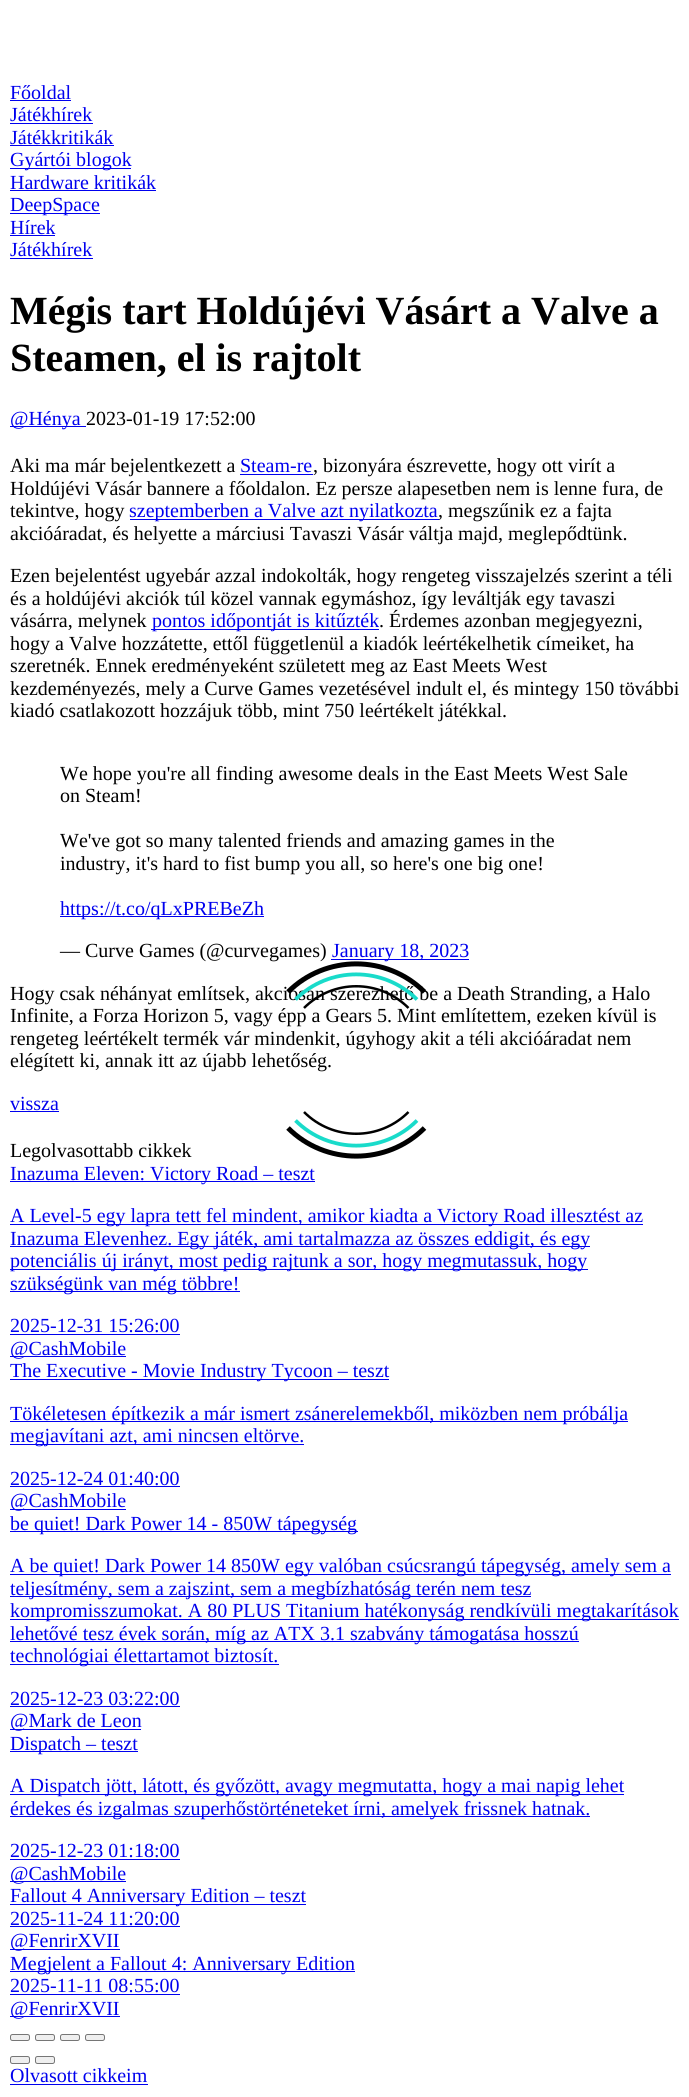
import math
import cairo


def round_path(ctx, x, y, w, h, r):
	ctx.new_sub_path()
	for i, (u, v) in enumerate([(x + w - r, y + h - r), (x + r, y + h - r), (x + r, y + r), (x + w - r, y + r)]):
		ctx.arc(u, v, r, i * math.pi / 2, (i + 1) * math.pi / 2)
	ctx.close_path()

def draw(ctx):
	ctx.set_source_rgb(1, 1, 1)
	ctx.paint()
	ctx.select_font_face('Liberation Serif')
	ctx.set_font_size(20)
	ctx.set_source_rgb(0, 0, 0.933)
	ctx.move_to(10, 99)
	ctx.show_text('Főoldal')
	ctx.rectangle(10, 100, 61, 1)
	ctx.fill()
	ctx.move_to(10, 121)
	ctx.show_text('Játékhírek')
	ctx.rectangle(10, 123, 83, 1)
	ctx.fill()
	ctx.move_to(10, 144)
	ctx.show_text('Játékkritikák')
	ctx.rectangle(10, 145, 104, 1)
	ctx.fill()
	ctx.rectangle(10, 168, 121, 1)
	ctx.fill()
	ctx.move_to(10, 166)
	ctx.show_text('Gyártói blogok')
	ctx.move_to(10, 189)
	ctx.show_text('Hardware kritikák')
	ctx.rectangle(10, 190, 146, 1)
	ctx.fill()
	ctx.rectangle(10, 213, 90, 1)
	ctx.fill()
	ctx.move_to(10, 211)
	ctx.show_text('DeepSpace')
	ctx.move_to(10, 234)
	ctx.show_text('Hírek')
	ctx.rectangle(10, 235, 45, 1)
	ctx.fill()
	ctx.move_to(10, 256)
	ctx.show_text('Játékhírek')
	ctx.rectangle(10, 258, 83, 1)
	ctx.fill()
	ctx.select_font_face('Liberation Serif', cairo.FONT_SLANT_NORMAL, cairo.FONT_WEIGHT_BOLD)
	ctx.set_font_size(40)
	ctx.set_source_rgb(0, 0, 0)
	ctx.move_to(10, 324)
	ctx.show_text('Mégis tart Holdújévi Vásárt a Valve a')
	ctx.move_to(10, 371)
	ctx.show_text('Steamen, el is rajtolt')
	ctx.set_source_rgb(0, 0, 0.933)
	ctx.rectangle(10, 426, 76, 1)
	ctx.fill()
	ctx.select_font_face('Liberation Serif')
	ctx.set_font_size(20)
	ctx.move_to(10, 425)
	ctx.show_text('@Hénya')
	ctx.set_source_rgb(0, 0, 0)
	ctx.move_to(86, 425)
	ctx.show_text('2023-01-19 17:52:00')
	ctx.move_to(10, 472)
	ctx.show_text('Aki ma már bejelentkezett a')
	ctx.set_source_rgb(0, 0, 0.933)
	ctx.move_to(240, 472)
	ctx.show_text('Steam-re')
	ctx.rectangle(240, 474, 73, 1)
	ctx.fill()
	ctx.set_source_rgb(0, 0, 0)
	for x, y, s in [
		(313, 472, ', bizonyára észrevette, hogy ott virít a'),
		(10, 495, 'Holdújévi Vásár bannere a főoldalon. Ez persze alapesetben nem is lenne fura, de'),
		(10, 517, 'tekintve, hogy'),
	]:
		ctx.move_to(x, y)
		ctx.show_text(s)
	ctx.set_source_rgb(0, 0, 0.933)
	ctx.rectangle(130, 519, 309, 1)
	ctx.fill()
	ctx.move_to(129, 517)
	ctx.show_text('szeptemberben a Valve azt nyilatkozta')
	ctx.set_source_rgb(0, 0, 0)
	for x, y, s in [
		(438, 517, ', megszűnik ez a fajta'),
		(10, 540, 'akcióáradat, és helyette a márciusi Tavaszi Vásár váltja majd, meglepődtünk.'),
		(10, 582, 'Ezen bejelentést ugyebár azzal indokolták, hogy rengeteg visszajelzés szerint a téli'),
		(10, 605, 'és a holdújévi akciók túl közel vannak egymáshoz, így leváltják egy tavaszi'),
		(10, 627, 'vásárra, melynek'),
	]:
		ctx.move_to(x, y)
		ctx.show_text(s)
	ctx.set_source_rgb(0, 0, 0.933)
	ctx.rectangle(151, 629, 228, 1)
	ctx.fill()
	ctx.move_to(152, 627)
	ctx.show_text('pontos időpontját is kitűzték')
	ctx.set_source_rgb(0, 0, 0)
	for x, y, s in [
		(379, 627, '. Érdemes azonban megjegyezni,'),
		(10, 650, 'hogy a Valve hozzátette, ettől függetlenül a kiadók leértékelhetik címeiket, ha'),
		(10, 672, 'szeretnék. Ennek eredményeként született meg az East Meets West'),
		(10, 695, 'kezdeményezés, mely a Curve Games vezetésével indult el, és mintegy 150 tövábbi'),
		(10, 717, 'kiadó csatlakozott hozzájuk több, mint 750 leértékelt játékkal.'),
		(60, 780, 'We hope you\'re all finding awesome deals in the East Meets West Sale'),
		(60, 802, 'on Steam!'),
		(60, 847, 'We\'ve got so many talented friends and amazing games in the'),
		(60, 870, 'industry, it\'s hard to fist bump you all, so here\'s one big one!'),
	]:
		ctx.move_to(x, y)
		ctx.show_text(s)
	ctx.set_source_rgb(0, 0, 0.933)
	ctx.rectangle(60, 916, 204, 1)
	ctx.fill()
	ctx.move_to(60, 915)
	ctx.show_text('https://t.co/qLxPREBeZh')
	ctx.set_source_rgb(0, 0, 0)
	ctx.move_to(60, 957)
	ctx.show_text('— Curve Games (@curvegames)')
	ctx.set_source_rgb(0, 0, 0.933)
	ctx.rectangle(331, 959, 138, 1)
	ctx.fill()
	ctx.move_to(332, 957)
	ctx.show_text('January 18, 2023')
	ctx.set_source_rgb(0, 0, 0)
	for x, y, s in [
		(10, 1000, 'Hogy csak néhányat említsek, akciósan szerezhető be a Death Stranding, a Halo'),
		(10, 1022, 'Infinite, a Forza Horizon 5, vagy épp a Gears 5. Mint említettem, ezeken kívül is'),
		(10, 1045, 'rengeteg leértékelt termék vár mindenkit, úgyhogy akit a téli akcióáradat nem'),
		(10, 1067, 'elégített ki, annak itt az újabb lehetőség.'),
	]:
		ctx.move_to(x, y)
		ctx.show_text(s)
	ctx.set_source_rgb(0, 0, 0.933)
	ctx.move_to(10, 1110)
	ctx.show_text('vissza')
	ctx.rectangle(10, 1111, 49, 1)
	ctx.fill()
	ctx.set_source_rgb(0, 0, 0)
	ctx.move_to(10, 1157)
	ctx.show_text('Legolvasottabb cikkek')
	ctx.set_source_rgb(0, 0, 0.933)
	ctx.rectangle(10, 1181, 305, 1)
	ctx.fill()
	ctx.move_to(10, 1180)
	ctx.show_text('Inazuma Eleven: Victory Road – teszt')
	ctx.rectangle(10, 1224, 633, 1)
	ctx.fill()
	ctx.move_to(10, 1222)
	ctx.show_text('A Level-5 egy lapra tett fel mindent, amikor kiadta a Victory Road illesztést az')
	ctx.rectangle(10, 1246, 580, 1)
	ctx.fill()
	ctx.move_to(10, 1245)
	ctx.show_text('Inazuma Elevenhez. Egy játék, ami tartalmazza az összes eddigit, és egy')
	ctx.rectangle(10, 1269, 578, 1)
	ctx.fill()
	ctx.move_to(10, 1267)
	ctx.show_text('potenciális új irányt, most pedig rajtunk a sor, hogy megmutassuk, hogy')
	ctx.rectangle(10, 1291, 230, 1)
	ctx.fill()
	ctx.move_to(10, 1290)
	ctx.show_text('szükségünk van még többre!')
	ctx.move_to(10, 1332)
	ctx.show_text('2025-12-31 15:26:00')
	ctx.rectangle(10, 1334, 170, 1)
	ctx.fill()
	ctx.rectangle(10, 1356, 116, 1)
	ctx.fill()
	ctx.move_to(10, 1355)
	ctx.show_text('@CashMobile')
	ctx.rectangle(10, 1379, 379, 1)
	ctx.fill()
	ctx.move_to(10, 1377)
	ctx.show_text('The Executive - Movie Industry Tycoon – teszt')
	ctx.rectangle(10, 1421, 618, 1)
	ctx.fill()
	ctx.move_to(10, 1420)
	ctx.show_text('Tökéletesen építkezik a már ismert zsánerelemekből, miközben nem próbálja')
	ctx.rectangle(10, 1444, 294, 1)
	ctx.fill()
	ctx.move_to(10, 1442)
	ctx.show_text('megjavítani azt, ami nincsen eltörve.')
	ctx.move_to(10, 1485)
	ctx.show_text('2025-12-24 01:40:00')
	ctx.rectangle(10, 1486, 170, 1)
	ctx.fill()
	ctx.rectangle(10, 1509, 116, 1)
	ctx.fill()
	ctx.move_to(10, 1507)
	ctx.show_text('@CashMobile')
	ctx.rectangle(10, 1531, 348, 1)
	ctx.fill()
	ctx.move_to(10, 1530)
	ctx.show_text('be quiet! Dark Power 14 - 850W tápegység')
	ctx.rectangle(10, 1574, 661, 1)
	ctx.fill()
	ctx.move_to(10, 1572)
	ctx.show_text('A be quiet! Dark Power 14 850W egy valóban csúcsrangú tápegység, amely sem a')
	ctx.rectangle(10, 1596, 521, 1)
	ctx.fill()
	ctx.move_to(10, 1595)
	ctx.show_text('teljesítmény, sem a zajszint, sem a megbízhatóság terén nem tesz')
	ctx.rectangle(10, 1619, 669, 1)
	ctx.fill()
	ctx.move_to(10, 1617)
	ctx.show_text('kompromisszumokat. A 80 PLUS Titanium hatékonyság rendkívüli megtakarítások')
	ctx.rectangle(10, 1641, 569, 1)
	ctx.fill()
	ctx.move_to(10, 1640)
	ctx.show_text('lehetővé tesz évek során, míg az ATX 3.1 szabvány támogatása hosszú')
	ctx.rectangle(10, 1664, 269, 1)
	ctx.fill()
	ctx.move_to(10, 1662)
	ctx.show_text('technológiai élettartamot biztosít.')
	ctx.move_to(10, 1705)
	ctx.show_text('2025-12-23 03:22:00')
	ctx.rectangle(10, 1706, 170, 1)
	ctx.fill()
	ctx.rectangle(10, 1729, 131, 1)
	ctx.fill()
	ctx.move_to(10, 1727)
	ctx.show_text('@Mark de Leon')
	ctx.rectangle(10, 1751, 128, 1)
	ctx.fill()
	ctx.move_to(10, 1750)
	ctx.show_text('Dispatch – teszt')
	ctx.rectangle(10, 1794, 614, 1)
	ctx.fill()
	ctx.move_to(10, 1792)
	ctx.show_text('A Dispatch jött, látott, és győzött, avagy megmutatta, hogy a mai napig lehet')
	ctx.rectangle(10, 1816, 580, 1)
	ctx.fill()
	ctx.move_to(10, 1815)
	ctx.show_text('érdekes és izgalmas szuperhőstörténeteket írni, amelyek frissnek hatnak.')
	ctx.move_to(10, 1857)
	ctx.show_text('2025-12-23 01:18:00')
	ctx.rectangle(10, 1859, 170, 1)
	ctx.fill()
	ctx.rectangle(10, 1881, 116, 1)
	ctx.fill()
	ctx.move_to(10, 1880)
	ctx.show_text('@CashMobile')
	ctx.rectangle(10, 1904, 296, 1)
	ctx.fill()
	ctx.move_to(10, 1902)
	ctx.show_text('Fallout 4 Anniversary Edition – teszt')
	ctx.move_to(10, 1925)
	ctx.show_text('2025-11-24 11:20:00')
	ctx.rectangle(10, 1926, 170, 1)
	ctx.fill()
	ctx.rectangle(10, 1949, 110, 1)
	ctx.fill()
	ctx.move_to(10, 1947)
	ctx.show_text('@FenrirXVII')
	ctx.rectangle(10, 1971, 345, 1)
	ctx.fill()
	ctx.move_to(10, 1970)
	ctx.show_text('Megjelent a Fallout 4: Anniversary Edition')
	ctx.move_to(10, 1992)
	ctx.show_text('2025-11-11 08:55:00')
	ctx.rectangle(10, 1994, 170, 1)
	ctx.fill()
	ctx.rectangle(10, 2016, 110, 1)
	ctx.fill()
	ctx.move_to(10, 2015)
	ctx.show_text('@FenrirXVII')
	ctx.new_path()
	ctx.move_to(288, 992)
	ctx.curve_to(325.5, 954.5, 387, 954.5, 424.5, 992)
	ctx.set_source_rgb(0, 0, 0)
	ctx.set_line_width(5)
	ctx.stroke()
	ctx.new_path()
	ctx.move_to(424.5, 1128)
	ctx.curve_to(387, 1165.5, 325.5, 1165.5, 288, 1128)
	ctx.stroke()
	ctx.new_path()
	ctx.move_to(295.5, 999.5)
	ctx.curve_to(329, 966, 383.5, 966, 417, 999.5)
	ctx.set_source_rgb(0.098, 0.859, 0.792)
	ctx.set_line_width(3.8)
	ctx.stroke()
	ctx.new_path()
	ctx.move_to(417, 1120.5)
	ctx.curve_to(383.5, 1154, 329, 1154, 295.5, 1120.5)
	ctx.stroke()
	ctx.new_path()
	ctx.move_to(304, 1008)
	ctx.curve_to(333, 979, 379.5, 979, 408.5, 1008)
	ctx.set_source_rgb(0, 0, 0)
	ctx.set_line_width(2.5)
	ctx.stroke()
	ctx.new_path()
	ctx.move_to(408.5, 1112)
	ctx.curve_to(379.5, 1141, 333, 1141, 304, 1112)
	ctx.stroke()
	ctx.set_source_rgb(0.937, 0.937, 0.937)
	round_path(ctx, 10.5, 2034.5, 19, 6, 2)
	ctx.fill_preserve()
	ctx.set_source_rgb(0.463, 0.463, 0.463)
	ctx.set_line_width(1)
	ctx.stroke()
	ctx.set_source_rgb(0.937, 0.937, 0.937)
	round_path(ctx, 35.5, 2034.5, 19, 6, 2)
	ctx.fill_preserve()
	ctx.set_source_rgb(0.463, 0.463, 0.463)
	ctx.stroke()
	ctx.set_source_rgb(0.937, 0.937, 0.937)
	round_path(ctx, 60.5, 2034.5, 19, 6, 2)
	ctx.fill_preserve()
	ctx.set_source_rgb(0.463, 0.463, 0.463)
	ctx.stroke()
	ctx.set_source_rgb(0.937, 0.937, 0.937)
	round_path(ctx, 85.5, 2034.5, 19, 6, 2)
	ctx.fill_preserve()
	ctx.set_source_rgb(0.463, 0.463, 0.463)
	ctx.stroke()
	ctx.set_source_rgb(0.937, 0.937, 0.937)
	round_path(ctx, 10.5, 2056.5, 19, 7, 2)
	ctx.fill_preserve()
	ctx.set_source_rgb(0.463, 0.463, 0.463)
	ctx.stroke()
	ctx.set_source_rgb(0.937, 0.937, 0.937)
	round_path(ctx, 35.5, 2056.5, 19, 7, 2)
	ctx.fill_preserve()
	ctx.set_source_rgb(0.463, 0.463, 0.463)
	ctx.stroke()
	ctx.set_source_rgb(0, 0, 0.933)
	ctx.move_to(10, 2082)
	ctx.show_text('Olvasott cikkeim')
	ctx.rectangle(10, 2084, 138, 1)
	ctx.fill()


surface = cairo.ImageSurface(cairo.FORMAT_RGB24, 689, 2097)
ctx = cairo.Context(surface)
options = cairo.FontOptions()
options.set_hint_metrics(cairo.HINT_METRICS_OFF)
options.set_hint_style(cairo.HINT_STYLE_NONE)
ctx.set_font_options(options)
ctx.set_miter_limit(4)
draw(ctx)
surface.write_to_png('image.png')
